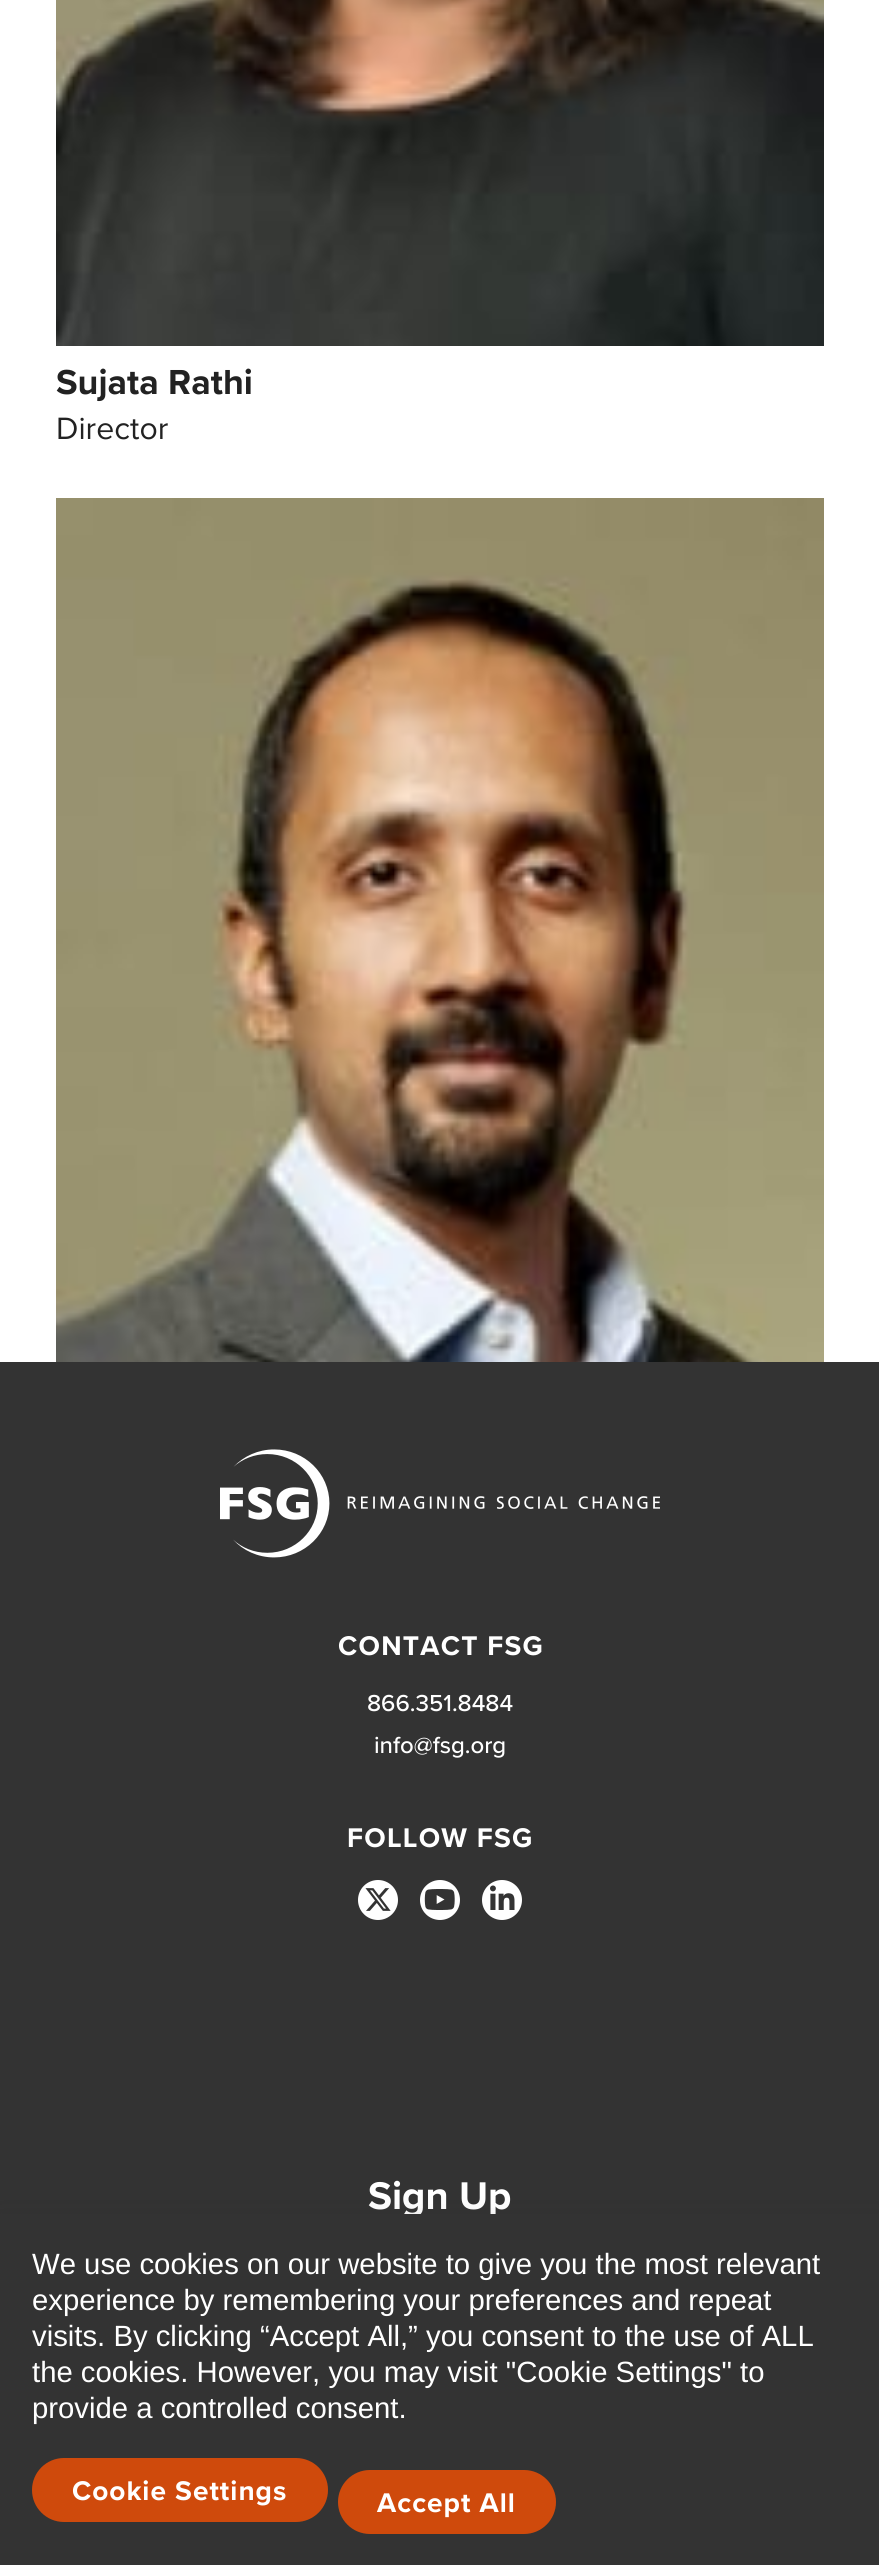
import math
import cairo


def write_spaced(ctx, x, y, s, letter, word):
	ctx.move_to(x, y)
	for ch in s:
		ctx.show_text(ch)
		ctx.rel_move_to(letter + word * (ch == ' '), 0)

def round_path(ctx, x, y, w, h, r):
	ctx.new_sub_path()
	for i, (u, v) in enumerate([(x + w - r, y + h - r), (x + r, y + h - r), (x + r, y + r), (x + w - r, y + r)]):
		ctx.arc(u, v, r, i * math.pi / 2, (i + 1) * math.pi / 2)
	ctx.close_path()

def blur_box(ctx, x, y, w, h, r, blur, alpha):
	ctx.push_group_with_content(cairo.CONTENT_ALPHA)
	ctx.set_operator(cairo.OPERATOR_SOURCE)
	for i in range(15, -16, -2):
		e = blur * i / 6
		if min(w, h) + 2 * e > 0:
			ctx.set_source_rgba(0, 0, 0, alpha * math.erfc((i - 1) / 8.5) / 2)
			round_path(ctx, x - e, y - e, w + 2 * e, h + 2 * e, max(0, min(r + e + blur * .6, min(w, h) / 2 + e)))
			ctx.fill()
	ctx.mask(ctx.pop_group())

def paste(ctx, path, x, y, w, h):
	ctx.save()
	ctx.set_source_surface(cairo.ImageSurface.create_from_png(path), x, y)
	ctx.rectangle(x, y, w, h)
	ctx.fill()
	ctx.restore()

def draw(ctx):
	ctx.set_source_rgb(1, 1, 1)
	ctx.paint()
	paste(ctx, 'media/1.png', 56, 0, 768, 346)
	ctx.select_font_face('Proxima Nova', cairo.FONT_SLANT_NORMAL, cairo.FONT_WEIGHT_BOLD)
	ctx.set_font_size(36)
	ctx.set_source_rgb(0.133, 0.133, 0.133)
	ctx.move_to(56, 394)
	ctx.show_text('Sujata Rathi')
	ctx.select_font_face('Proxima Nova')
	ctx.set_font_size(32)
	ctx.move_to(56, 439)
	ctx.show_text('Director')
	paste(ctx, 'media/2.png', 56, 498, 768, 864)
	ctx.set_source_rgb(0.2, 0.2, 0.2)
	ctx.rectangle(0, 1362, 879, 852)
	ctx.fill()
	paste(ctx, 'media/3.png', 220, 1449, 440, 109)
	ctx.select_font_face('Proxima Nova', cairo.FONT_SLANT_NORMAL, cairo.FONT_WEIGHT_BOLD)
	ctx.set_font_size(28)
	ctx.set_source_rgb(1, 1, 1)
	write_spaced(ctx, 338, 1655, 'CONTACT FSG', 1.25, 0)
	ctx.select_font_face('Proxima Nova Medium')
	ctx.set_font_size(24)
	ctx.move_to(367, 1711)
	ctx.show_text('866.351.8484')
	ctx.move_to(374, 1753)
	ctx.show_text('info@fsg.org')
	ctx.select_font_face('Proxima Nova', cairo.FONT_SLANT_NORMAL, cairo.FONT_WEIGHT_BOLD)
	ctx.set_font_size(28)
	write_spaced(ctx, 347, 1847, 'FOLLOW FSG', 1.25, 0)
	ctx.new_path()
	ctx.arc(378, 1900, 20, 0, 2 * math.pi)
	ctx.fill()
	paste(ctx, 'media/4.png', 365, 1888, 26, 23)
	ctx.arc(440, 1900, 20, 0, 2 * math.pi)
	ctx.fill()
	paste(ctx, 'media/5.png', 424, 1889, 31, 21)
	ctx.arc(502, 1900, 20, 0, 2 * math.pi)
	ctx.fill()
	paste(ctx, 'media/6.png', 490, 1885, 25, 25)
	ctx.set_font_size(40)
	ctx.move_to(368, 2209)
	ctx.show_text('Sign Up')
	ctx.set_source_rgb(0.133, 0.133, 0.133)
	blur_box(ctx, 0, 2218, 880, 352, 0, 12, 0.15)
	ctx.set_source_rgb(0.2, 0.2, 0.2)
	ctx.rectangle(0, 2214, 879, 351)
	ctx.fill()
	ctx.select_font_face('Liberation Sans')
	ctx.set_font_size(29.3)
	ctx.set_source_rgb(1, 1, 1)
	for x, y, s in [
		(32, 2274, 'We use cookies on our website to give you the most relevant'),
		(32, 2310, 'experience by remembering your preferences and repeat'),
		(32, 2346, 'visits. By clicking “Accept All,” you consent to the use of ALL'),
		(32, 2382, 'the cookies. However, you may visit "Cookie Settings" to'),
		(32, 2418, 'provide a controlled consent.'),
	]:
		ctx.move_to(x, y)
		ctx.show_text(s)
	ctx.set_source_rgb(0.812, 0.29, 0.047)
	round_path(ctx, 32, 2458, 296, 64, 32)
	ctx.fill()
	ctx.select_font_face('Proxima Nova', cairo.FONT_SLANT_NORMAL, cairo.FONT_WEIGHT_BOLD)
	ctx.set_font_size(28)
	ctx.set_source_rgb(1, 1, 1)
	write_spaced(ctx, 72, 2500, 'Cookie Settings', 1, 0)
	ctx.set_source_rgb(0.812, 0.29, 0.047)
	round_path(ctx, 338, 2470, 218, 64, 32)
	ctx.fill()
	ctx.set_source_rgb(1, 1, 1)
	write_spaced(ctx, 377, 2512, 'Accept All', 1, 0)


surface = cairo.ImageSurface(cairo.FORMAT_RGB24, 879, 2565)
ctx = cairo.Context(surface)
options = cairo.FontOptions()
options.set_hint_metrics(cairo.HINT_METRICS_OFF)
options.set_hint_style(cairo.HINT_STYLE_NONE)
ctx.set_font_options(options)
ctx.set_miter_limit(4)
draw(ctx)
surface.write_to_png('image.png')
